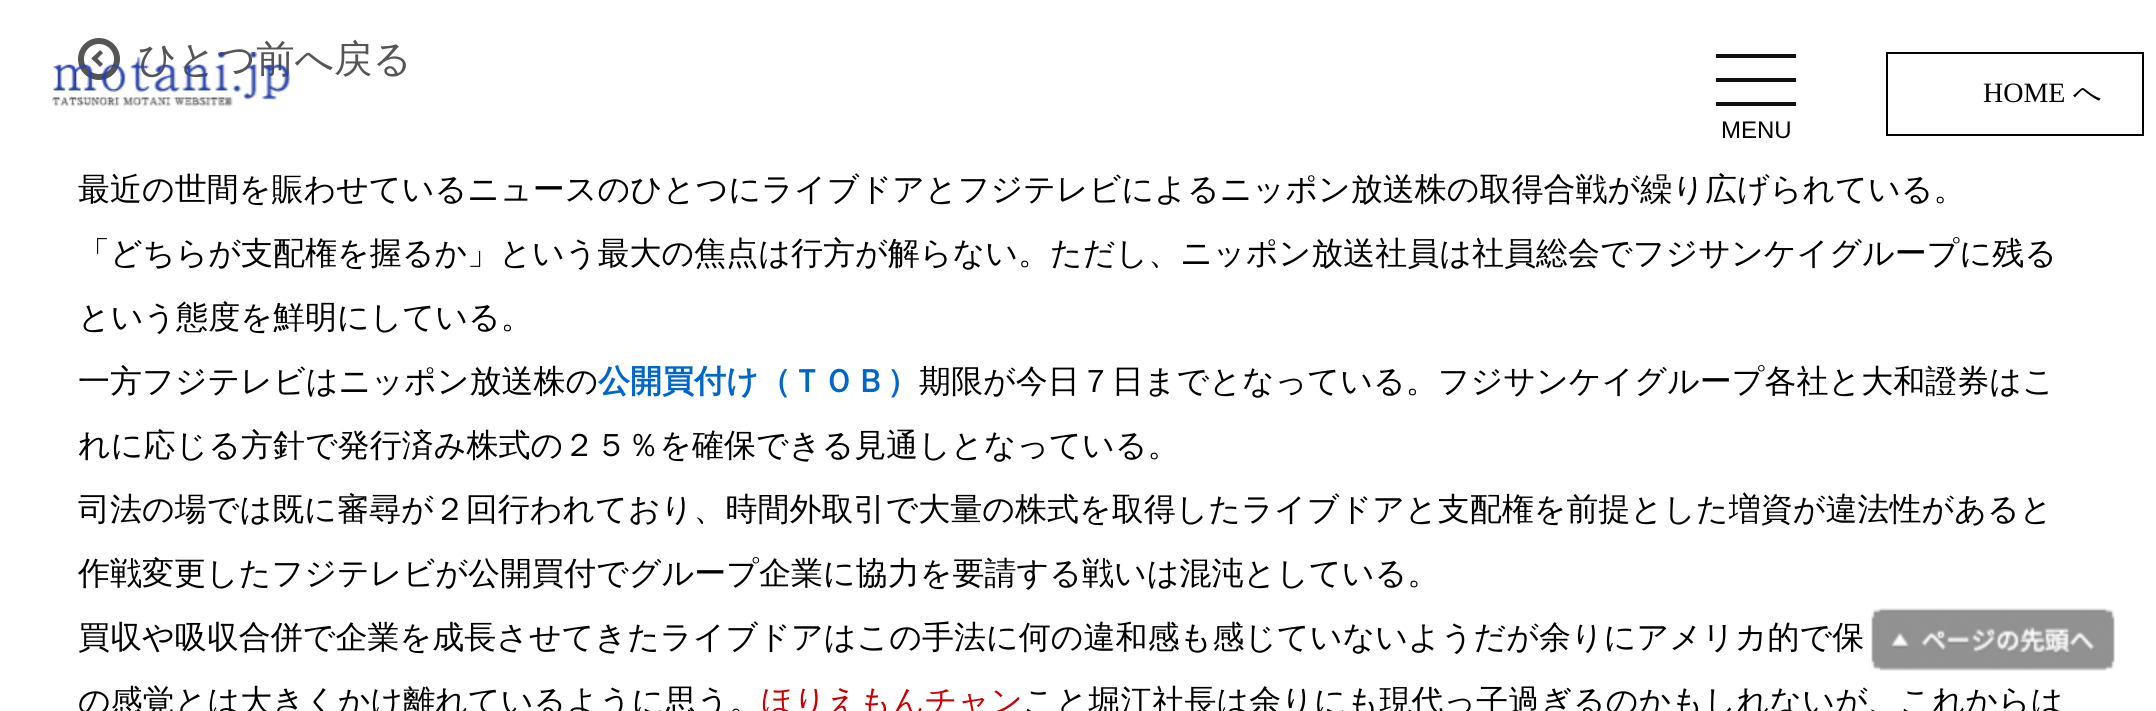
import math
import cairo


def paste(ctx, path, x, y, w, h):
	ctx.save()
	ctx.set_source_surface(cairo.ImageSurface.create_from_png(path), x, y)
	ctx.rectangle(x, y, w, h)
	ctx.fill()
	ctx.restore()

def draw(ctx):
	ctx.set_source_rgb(1, 1, 1)
	ctx.paint()
	ctx.arc(99, 59, 18, 0, 2 * math.pi)
	ctx.set_source_rgb(0.333, 0.333, 0.333)
	ctx.set_line_width(6)
	ctx.stroke()
	ctx.select_font_face('WenQuanYi Zen Hei Medium')
	ctx.set_font_size(38.5)
	ctx.move_to(138, 72)
	ctx.show_text('ひとつ前へ戻る')
	ctx.new_path()
	ctx.move_to(100, 67)
	ctx.line_to(91.5, 58.5)
	ctx.line_to(94.5, 55.5)
	ctx.line_to(103, 64)
	ctx.close_path()
	ctx.fill()
	ctx.new_path()
	ctx.move_to(94.5, 61.5)
	ctx.line_to(91.5, 58.5)
	ctx.line_to(100, 50)
	ctx.line_to(103, 53)
	ctx.close_path()
	ctx.fill()
	ctx.set_font_size(32)
	ctx.set_source_rgb(0, 0, 0)
	for x, y, s in [
		(78, 200, '最近の世間を賑わせているニュースのひとつにライブドアとフジテレビによるニッポン放送株の取得合戦が繰り広げられている。'),
		(78, 264, '「どちらが支配権を握るか」という最大の焦点は行方が解らない。ただし、ニッポン放送社員は社員総会でフジサンケイグループに残る'),
		(78, 328, 'という態度を鮮明にしている。'),
		(78, 392, '一方フジテレビはニッポン放送株の'),
	]:
		ctx.move_to(x, y)
		ctx.show_text(s)
	ctx.select_font_face('WenQuanYi Zen Hei', cairo.FONT_SLANT_NORMAL, cairo.FONT_WEIGHT_BOLD)
	ctx.set_source_rgb(0, 0.4, 0.8)
	ctx.move_to(598, 392)
	ctx.show_text('公開買付け（ＴＯＢ）')
	ctx.select_font_face('WenQuanYi Zen Hei Medium')
	ctx.set_source_rgb(0, 0, 0)
	for x, y, s in [
		(919, 392, '期限が今日７日までとなっている。フジサンケイグループ各社と大和證券はこ'),
		(78, 456, 'れに応じる方針で発行済み株式の２５％を確保できる見通しとなっている。'),
		(78, 520, '司法の場では既に審尋が２回行われており、時間外取引で大量の株式を取得したライブドアと支配権を前提とした増資が違法性があると'),
		(78, 584, '作戦変更したフジテレビが公開買付でグループ企業に協力を要請する戦いは混沌としている。'),
		(78, 648, '買収や吸収合併で企業を成長させてきたライブドアはこの手法に何の違和感も感じていないようだが余りにアメリカ的で保'),
		(78, 712, 'の感覚とは大きくかけ離れているように思う。'),
	]:
		ctx.move_to(x, y)
		ctx.show_text(s)
	ctx.set_source_rgb(0.8, 0, 0)
	ctx.move_to(761, 712)
	ctx.show_text('ほりえもんチャン')
	ctx.set_source_rgb(0, 0, 0)
	ctx.move_to(1023, 712)
	ctx.show_text('こと堀江社長は余りにも現代っ子過ぎるのかもしれないが、これからは')
	paste(ctx, 'media/1.png', 52, 52, 238, 55)
	ctx.rectangle(1887, 53, 256, 82)
	ctx.set_line_width(2)
	ctx.stroke()
	ctx.select_font_face('Liberation Serif')
	ctx.set_font_size(28)
	ctx.move_to(1983, 102)
	ctx.show_text('HOME')
	ctx.select_font_face('WenQuanYi Zen Hei Medium')
	ctx.move_to(2073, 102)
	ctx.show_text('へ')
	ctx.set_source_rgb(0.067, 0.067, 0.067)
	ctx.rectangle(1716, 54, 80, 4)
	ctx.rectangle(1716, 78, 80, 4)
	ctx.rectangle(1716, 102, 80, 4)
	ctx.fill()
	ctx.select_font_face('Liberation Sans')
	ctx.set_font_size(24)
	ctx.set_source_rgb(0, 0, 0)
	ctx.move_to(1721, 138)
	ctx.show_text('MENU')
	paste(ctx, 'media/2.png', 1871, 608, 244, 63)


surface = cairo.ImageSurface(cairo.FORMAT_RGB24, 2156, 711)
ctx = cairo.Context(surface)
options = cairo.FontOptions()
options.set_hint_metrics(cairo.HINT_METRICS_OFF)
options.set_hint_style(cairo.HINT_STYLE_NONE)
ctx.set_font_options(options)
ctx.set_miter_limit(4)
draw(ctx)
surface.write_to_png('image.png')
